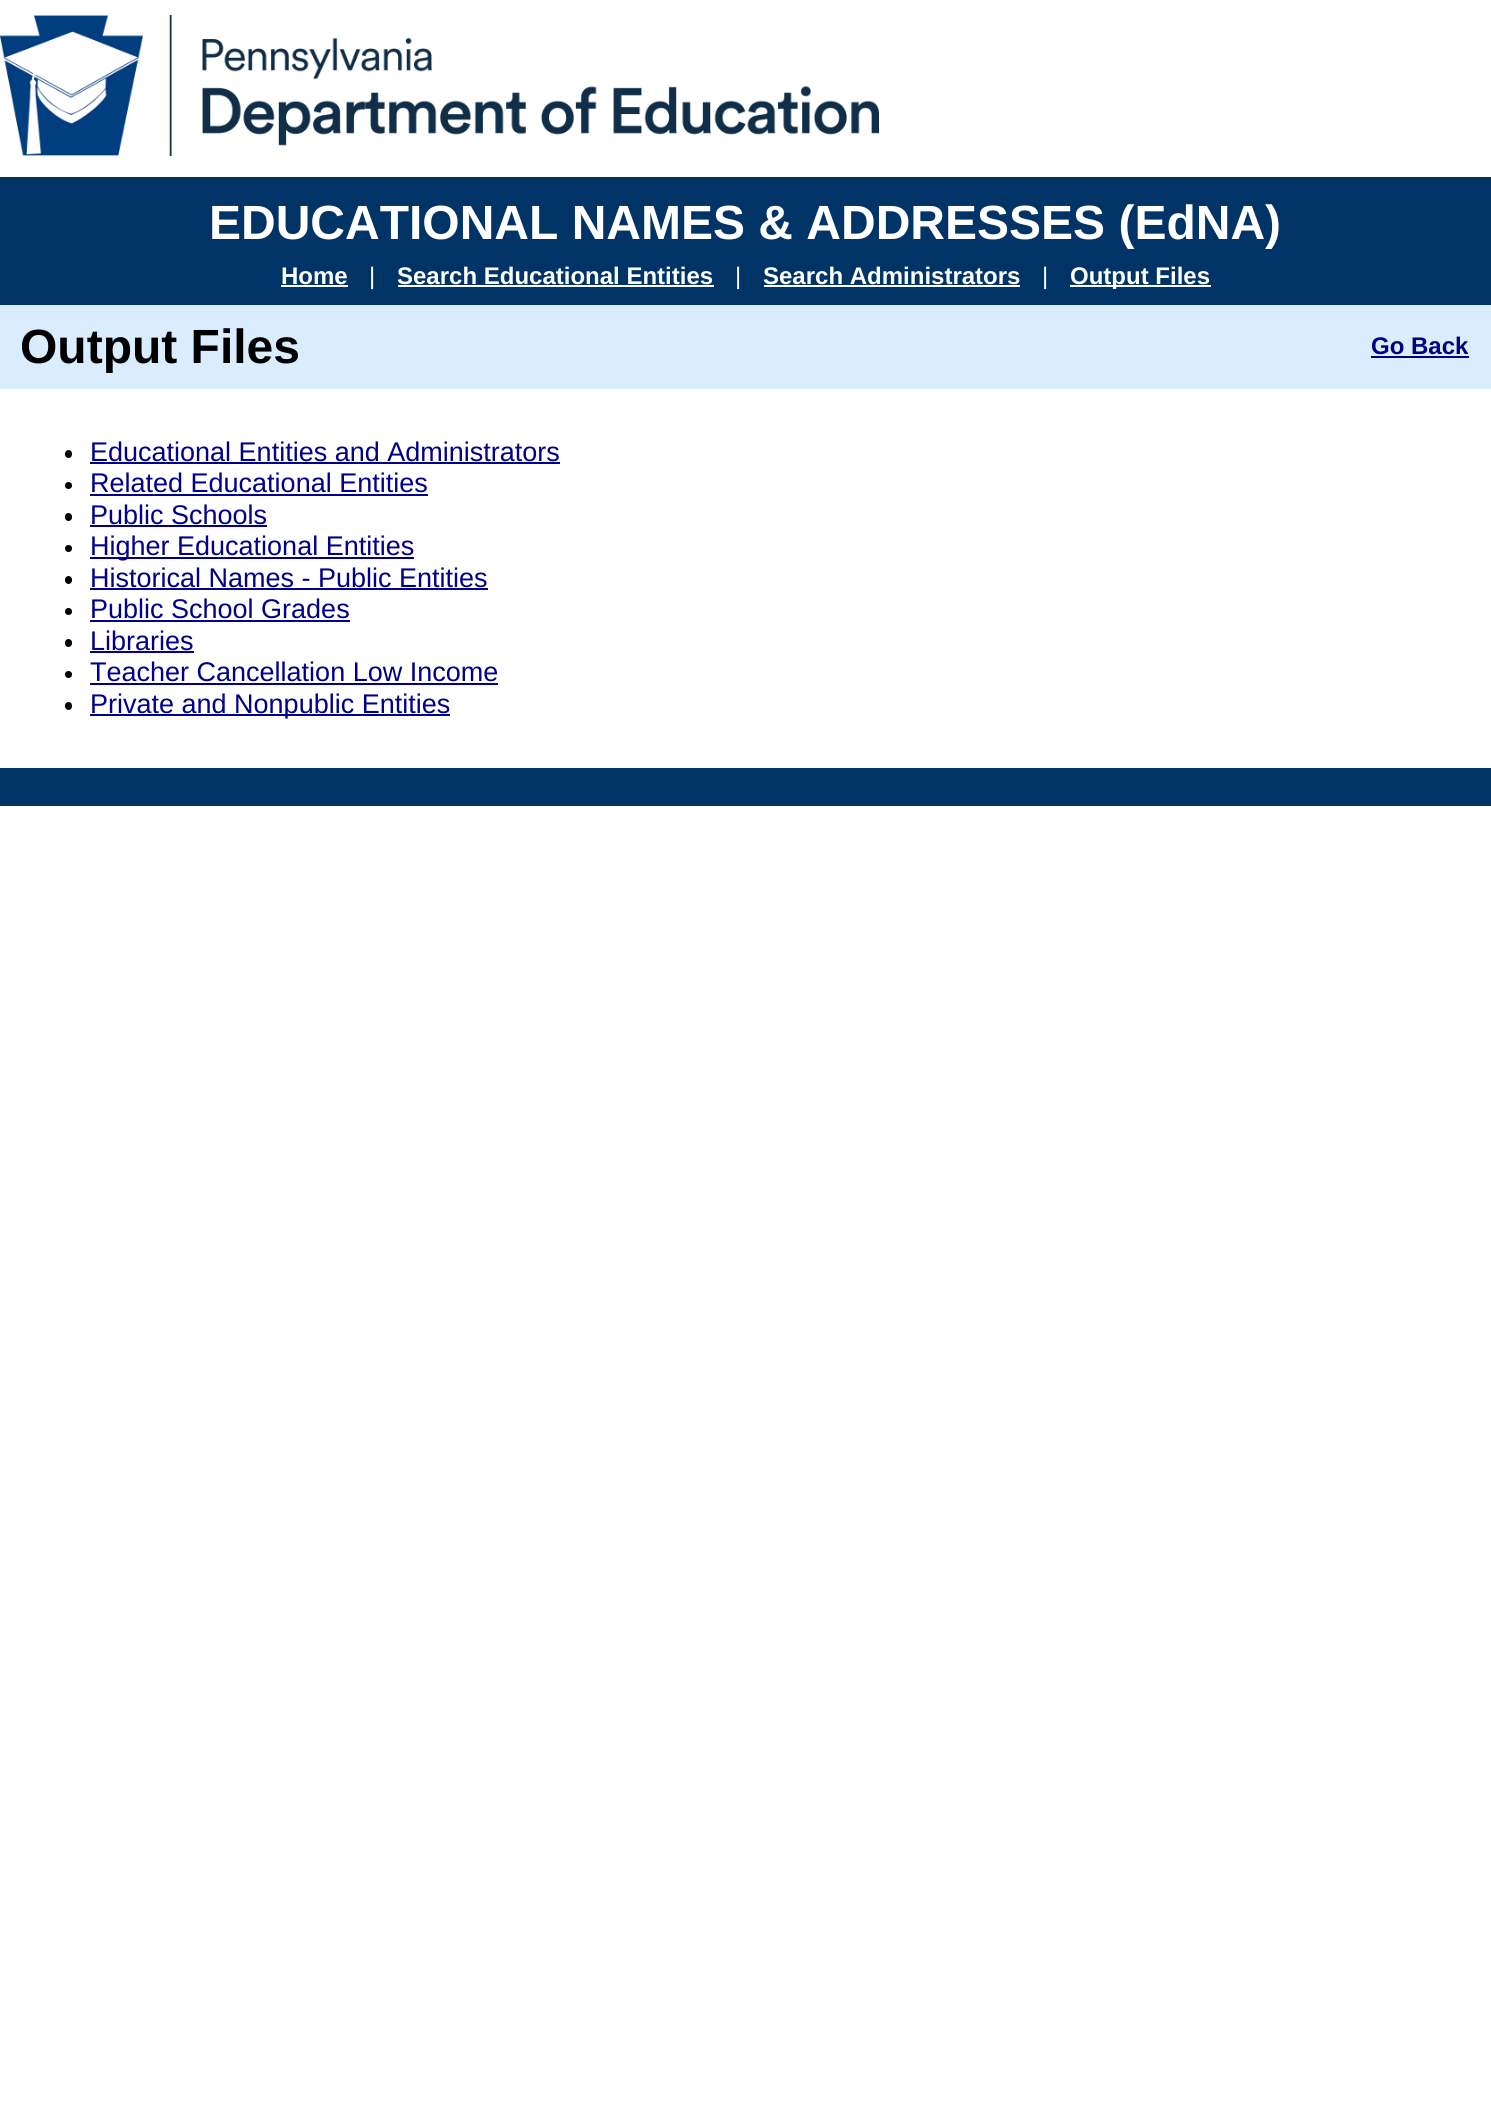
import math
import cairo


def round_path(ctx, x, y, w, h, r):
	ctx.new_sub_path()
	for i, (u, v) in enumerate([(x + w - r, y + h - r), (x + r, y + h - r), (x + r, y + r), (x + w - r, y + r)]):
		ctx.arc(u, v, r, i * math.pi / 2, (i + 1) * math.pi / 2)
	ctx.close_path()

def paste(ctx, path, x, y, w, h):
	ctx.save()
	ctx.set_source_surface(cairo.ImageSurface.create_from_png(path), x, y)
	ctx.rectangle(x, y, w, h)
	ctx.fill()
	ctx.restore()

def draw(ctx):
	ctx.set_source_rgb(1, 1, 1)
	ctx.paint()
	ctx.set_source_rgb(0, 0.2, 0.4)
	ctx.rectangle(0, 177, 1491, 128)
	ctx.fill()
	paste(ctx, 'media/1.png', 0, 15, 879, 141)
	ctx.select_font_face('Liberation Sans', cairo.FONT_SLANT_NORMAL, cairo.FONT_WEIGHT_BOLD)
	ctx.set_font_size(48)
	ctx.set_source_rgb(1, 1, 1)
	ctx.move_to(209, 239)
	ctx.show_text('EDUCATIONAL NAMES & ADDRESSES (EdNA)')
	ctx.set_font_size(24)
	ctx.move_to(281, 284)
	ctx.show_text('Home')
	ctx.rectangle(281, 285, 67, 2)
	ctx.fill()
	ctx.select_font_face('Liberation Sans')
	ctx.move_to(369, 284)
	ctx.show_text('|')
	ctx.select_font_face('Liberation Sans', cairo.FONT_SLANT_NORMAL, cairo.FONT_WEIGHT_BOLD)
	ctx.move_to(397, 284)
	ctx.show_text('Search Educational Entities')
	ctx.rectangle(398, 285, 316, 2)
	ctx.fill()
	ctx.select_font_face('Liberation Sans')
	ctx.move_to(735, 284)
	ctx.show_text('|')
	ctx.select_font_face('Liberation Sans', cairo.FONT_SLANT_NORMAL, cairo.FONT_WEIGHT_BOLD)
	ctx.move_to(763, 284)
	ctx.show_text('Search Administrators')
	ctx.rectangle(764, 285, 256, 2)
	ctx.fill()
	ctx.select_font_face('Liberation Sans')
	ctx.move_to(1042, 284)
	ctx.show_text('|')
	ctx.rectangle(1070, 285, 141, 2)
	ctx.fill()
	ctx.select_font_face('Liberation Sans', cairo.FONT_SLANT_NORMAL, cairo.FONT_WEIGHT_BOLD)
	ctx.move_to(1070, 284)
	ctx.show_text('Output Files')
	ctx.set_source_rgb(0.851, 0.929, 1)
	ctx.rectangle(0, 305, 1491, 84)
	ctx.fill()
	ctx.set_font_size(48)
	ctx.set_source_rgb(0, 0, 0)
	ctx.move_to(20, 363)
	ctx.show_text('Output Files')
	ctx.set_font_size(24)
	ctx.set_source_rgb(0, 0, 0.502)
	ctx.move_to(1371, 354)
	ctx.show_text('Go Back')
	ctx.rectangle(1371, 356, 98, 2)
	ctx.fill()
	ctx.set_source_rgb(0, 0, 0)
	round_path(ctx, 65, 450, 7, 8, 3.5)
	ctx.fill()
	ctx.select_font_face('Liberation Sans')
	ctx.set_font_size(27)
	ctx.set_source_rgb(0, 0, 0.545)
	ctx.move_to(90, 461)
	ctx.show_text('Educational Entities and Administrators')
	ctx.rectangle(90, 462, 470, 2)
	ctx.fill()
	ctx.set_source_rgb(0, 0, 0)
	ctx.arc(68.5, 485.5, 3.5, 0, 2 * math.pi)
	ctx.fill()
	ctx.set_source_rgb(0, 0, 0.545)
	ctx.move_to(90, 492)
	ctx.show_text('Related Educational Entities')
	ctx.rectangle(90, 494, 338, 2)
	ctx.fill()
	ctx.set_source_rgb(0, 0, 0)
	round_path(ctx, 65, 513, 7, 8, 3.5)
	ctx.fill()
	ctx.set_source_rgb(0, 0, 0.545)
	ctx.move_to(90, 524)
	ctx.show_text('Public Schools')
	ctx.rectangle(90, 525, 177, 2)
	ctx.fill()
	ctx.set_source_rgb(0, 0, 0)
	ctx.arc(68.5, 548.5, 3.5, 0, 2 * math.pi)
	ctx.fill()
	ctx.set_source_rgb(0, 0, 0.545)
	ctx.rectangle(90, 557, 324, 2)
	ctx.fill()
	ctx.move_to(90, 555)
	ctx.show_text('Higher Educational Entities')
	ctx.set_source_rgb(0, 0, 0)
	round_path(ctx, 65, 576, 7, 8, 3.5)
	ctx.fill()
	ctx.set_source_rgb(0, 0, 0.545)
	ctx.move_to(90, 587)
	ctx.show_text('Historical Names - Public Entities')
	ctx.rectangle(90, 588, 398, 2)
	ctx.fill()
	ctx.set_source_rgb(0, 0, 0)
	ctx.arc(68.5, 611.5, 3.5, 0, 2 * math.pi)
	ctx.fill()
	ctx.set_source_rgb(0, 0, 0.545)
	ctx.move_to(90, 618)
	ctx.show_text('Public School Grades')
	ctx.rectangle(90, 620, 260, 2)
	ctx.fill()
	ctx.set_source_rgb(0, 0, 0)
	round_path(ctx, 65, 639, 7, 8, 3.5)
	ctx.fill()
	ctx.set_source_rgb(0, 0, 0.545)
	ctx.move_to(90, 650)
	ctx.show_text('Libraries')
	ctx.rectangle(90, 651, 104, 2)
	ctx.fill()
	ctx.set_source_rgb(0, 0, 0)
	ctx.arc(68.5, 674.5, 3.5, 0, 2 * math.pi)
	ctx.fill()
	ctx.set_source_rgb(0, 0, 0.545)
	ctx.move_to(90, 681)
	ctx.show_text('Teacher Cancellation Low Income')
	ctx.rectangle(90, 683, 408, 2)
	ctx.fill()
	ctx.set_source_rgb(0, 0, 0)
	round_path(ctx, 65, 702, 7, 8, 3.5)
	ctx.fill()
	ctx.set_source_rgb(0, 0, 0.545)
	ctx.rectangle(90, 714, 360, 2)
	ctx.fill()
	ctx.move_to(90, 713)
	ctx.show_text('Private and Nonpublic Entities')
	ctx.set_source_rgb(0, 0.2, 0.4)
	ctx.rectangle(0, 768, 1491, 38)
	ctx.fill()


surface = cairo.ImageSurface(cairo.FORMAT_RGB24, 1491, 2116)
ctx = cairo.Context(surface)
options = cairo.FontOptions()
options.set_hint_metrics(cairo.HINT_METRICS_OFF)
options.set_hint_style(cairo.HINT_STYLE_NONE)
ctx.set_font_options(options)
ctx.set_miter_limit(4)
draw(ctx)
surface.write_to_png('image.png')
